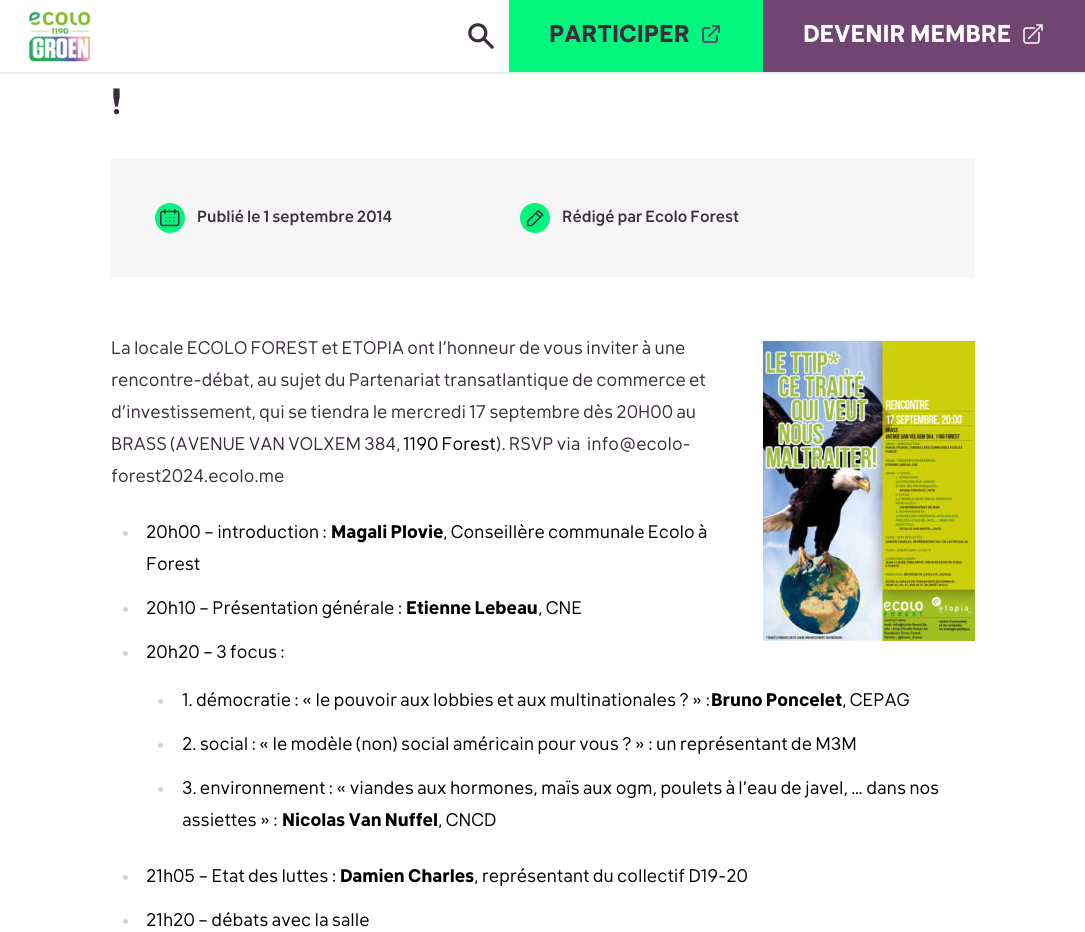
import math
import cairo


def round_path(ctx, x, y, w, h, r):
	ctx.new_sub_path()
	for i, (u, v) in enumerate([(x + w - r, y + h - r), (x + r, y + h - r), (x + r, y + r), (x + w - r, y + r)]):
		ctx.arc(u, v, r, i * math.pi / 2, (i + 1) * math.pi / 2)
	ctx.close_path()

def blur_box(ctx, x, y, w, h, r, blur, alpha):
	ctx.push_group_with_content(cairo.CONTENT_ALPHA)
	ctx.set_operator(cairo.OPERATOR_SOURCE)
	for i in range(15, -16, -2):
		e = blur * i / 6
		if min(w, h) + 2 * e > 0:
			ctx.set_source_rgba(0, 0, 0, alpha * math.erfc((i - 1) / 8.5) / 2)
			round_path(ctx, x - e, y - e, w + 2 * e, h + 2 * e, max(0, min(r + e + blur * .6, min(w, h) / 2 + e)))
			ctx.fill()
	ctx.mask(ctx.pop_group())

def paste(ctx, path, x, y, w, h):
	ctx.save()
	ctx.set_source_surface(cairo.ImageSurface.create_from_png(path), x, y)
	ctx.rectangle(x, y, w, h)
	ctx.fill()
	ctx.restore()

def draw(ctx):
	ctx.set_source_rgb(1, 1, 1)
	ctx.paint()
	ctx.set_source_rgb(0, 0, 0)
	blur_box(ctx, 1, 2, 1083, 70, 0, 1, 0.1)
	blur_box(ctx, 0, 1, 1085, 72, 0, 1.5, 0.1)
	ctx.set_source_rgb(1, 1, 1)
	ctx.rectangle(0, 0, 509, 72)
	ctx.fill()
	paste(ctx, 'media/1.png', 29, 11, 62, 51)
	paste(ctx, 'media/2.png', 468, 23, 26, 26)
	ctx.set_source_rgb(0, 0.961, 0.486)
	ctx.rectangle(509, 0, 254, 72)
	ctx.fill()
	ctx.select_font_face('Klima', cairo.FONT_SLANT_NORMAL, cairo.FONT_WEIGHT_BOLD)
	ctx.set_font_size(24)
	ctx.set_source_rgb(0.231, 0.176, 0.239)
	ctx.move_to(549, 42)
	ctx.show_text('PARTICIPER')
	paste(ctx, 'media/3.png', 702, 25, 18, 18)
	ctx.set_source_rgb(0.439, 0.271, 0.447)
	ctx.rectangle(763, 0, 322, 72)
	ctx.fill()
	ctx.set_source_rgb(1, 1, 1)
	ctx.move_to(803, 42)
	ctx.show_text('DEVENIR MEMBRE')
	paste(ctx, 'media/4.png', 1023, 24, 20, 20)
	ctx.set_font_size(36)
	ctx.set_source_rgb(0.231, 0.176, 0.239)
	ctx.move_to(111, 114)
	ctx.show_text('!')
	ctx.set_source_rgb(0.961, 0.961, 0.961)
	ctx.rectangle(111, 159, 864, 118)
	ctx.fill()
	paste(ctx, 'media/5.png', 155, 203, 30, 30)
	ctx.select_font_face('Klima Medium')
	ctx.set_font_size(16)
	ctx.set_source_rgb(0.231, 0.176, 0.239)
	ctx.move_to(197, 222)
	ctx.show_text('Publié le 1 septembre 2014')
	paste(ctx, 'media/6.png', 520, 203, 30, 30)
	ctx.move_to(562, 222)
	ctx.show_text('Rédigé par Ecolo Forest')
	ctx.select_font_face('Klima')
	ctx.set_font_size(18)
	for x, y, s in [
		(111, 354, 'La locale ECOLO FOREST et ETOPIA ont l’honneur de vous inviter à une'),
		(111, 386, 'rencontre-débat, au sujet du Partenariat transatlantique de commerce et'),
		(111, 418, 'd’investissement, qui se tiendra le mercredi 17 septembre dès 20H00 au'),
		(111, 450, 'BRASS (AVENUE VAN VOLXEM 384,'),
	]:
		ctx.move_to(x, y)
		ctx.show_text(s)
	ctx.set_source_rgb(0, 0, 0)
	ctx.move_to(403, 450)
	ctx.show_text('1190 Forest')
	ctx.set_source_rgb(0.231, 0.176, 0.239)
	ctx.move_to(496, 450)
	ctx.show_text('). RSVP via  info@ecolo-')
	ctx.move_to(111, 482)
	ctx.show_text('forest2024.ecolo.me')
	paste(ctx, 'media/7.png', 763, 341, 212, 300)
	ctx.set_source_rgb(0.82, 0.835, 0.859)
	ctx.arc(125.5, 533.5, 2.5, 0, 2 * math.pi)
	ctx.fill()
	ctx.set_source_rgb(0, 0, 0)
	ctx.move_to(146, 538)
	ctx.show_text('20h00 – introduction :')
	ctx.select_font_face('Klima', cairo.FONT_SLANT_NORMAL, cairo.FONT_WEIGHT_BOLD)
	ctx.move_to(331, 538)
	ctx.show_text('Magali Plovie')
	ctx.select_font_face('Klima')
	ctx.move_to(443, 538)
	ctx.show_text(', Conseillère communale Ecolo à')
	ctx.move_to(146, 570)
	ctx.show_text('Forest')
	ctx.set_source_rgb(0.82, 0.835, 0.859)
	ctx.new_path()
	ctx.arc(125.5, 609.5, 2.5, 0, 2 * math.pi)
	ctx.fill()
	ctx.set_source_rgb(0, 0, 0)
	ctx.move_to(146, 614)
	ctx.show_text('20h10 – Présentation générale :')
	ctx.select_font_face('Klima', cairo.FONT_SLANT_NORMAL, cairo.FONT_WEIGHT_BOLD)
	ctx.move_to(406, 614)
	ctx.show_text('Etienne Lebeau')
	ctx.select_font_face('Klima')
	ctx.move_to(538, 614)
	ctx.show_text(', CNE')
	ctx.set_source_rgb(0.82, 0.835, 0.859)
	ctx.new_path()
	ctx.arc(125.5, 653.5, 2.5, 0, 2 * math.pi)
	ctx.fill()
	ctx.set_source_rgb(0, 0, 0)
	ctx.move_to(146, 658)
	ctx.show_text('20h20 – 3 focus :')
	ctx.set_source_rgb(0.82, 0.835, 0.859)
	ctx.new_path()
	ctx.arc(160.5, 701.5, 2.5, 0, 2 * math.pi)
	ctx.fill()
	ctx.set_source_rgb(0, 0, 0)
	ctx.move_to(182, 706)
	ctx.show_text('1. démocratie : « le pouvoir aux lobbies et aux multinationales ? » :')
	ctx.select_font_face('Klima', cairo.FONT_SLANT_NORMAL, cairo.FONT_WEIGHT_BOLD)
	ctx.move_to(711, 706)
	ctx.show_text('Bruno Poncelet')
	ctx.select_font_face('Klima')
	ctx.move_to(842, 706)
	ctx.show_text(', CEPAG')
	ctx.set_source_rgb(0.82, 0.835, 0.859)
	ctx.new_path()
	ctx.arc(160.5, 745.5, 2.5, 0, 2 * math.pi)
	ctx.fill()
	ctx.set_source_rgb(0, 0, 0)
	ctx.move_to(182, 750)
	ctx.show_text('2. social : « le modèle (non) social américain pour vous ? » : un représentant de M3M')
	ctx.set_source_rgb(0.82, 0.835, 0.859)
	ctx.new_path()
	ctx.arc(160.5, 789.5, 2.5, 0, 2 * math.pi)
	ctx.fill()
	ctx.set_source_rgb(0, 0, 0)
	ctx.move_to(182, 794)
	ctx.show_text('3. environnement : « viandes aux hormones, maïs aux ogm, poulets à l’eau de javel, … dans nos')
	ctx.move_to(182, 826)
	ctx.show_text('assiettes » :')
	ctx.select_font_face('Klima', cairo.FONT_SLANT_NORMAL, cairo.FONT_WEIGHT_BOLD)
	ctx.move_to(282, 826)
	ctx.show_text('Nicolas Van Nuffel')
	ctx.select_font_face('Klima')
	ctx.move_to(438, 826)
	ctx.show_text(', CNCD')
	ctx.set_source_rgb(0.82, 0.835, 0.859)
	ctx.new_path()
	ctx.arc(125.5, 877.5, 2.5, 0, 2 * math.pi)
	ctx.fill()
	ctx.set_source_rgb(0, 0, 0)
	ctx.move_to(146, 882)
	ctx.show_text('21h05 – Etat des luttes :')
	ctx.select_font_face('Klima', cairo.FONT_SLANT_NORMAL, cairo.FONT_WEIGHT_BOLD)
	ctx.move_to(340, 882)
	ctx.show_text('Damien Charles')
	ctx.select_font_face('Klima')
	ctx.move_to(474, 882)
	ctx.show_text(', représentant du collectif D19-20')
	ctx.set_source_rgb(0.82, 0.835, 0.859)
	ctx.new_path()
	ctx.arc(125.5, 921.5, 2.5, 0, 2 * math.pi)
	ctx.fill()
	ctx.set_source_rgb(0, 0, 0)
	ctx.move_to(146, 926)
	ctx.show_text('21h20 – débats avec la salle')


surface = cairo.ImageSurface(cairo.FORMAT_RGB24, 1085, 932)
ctx = cairo.Context(surface)
options = cairo.FontOptions()
options.set_hint_metrics(cairo.HINT_METRICS_OFF)
options.set_hint_style(cairo.HINT_STYLE_NONE)
ctx.set_font_options(options)
ctx.set_miter_limit(4)
draw(ctx)
surface.write_to_png('image.png')
